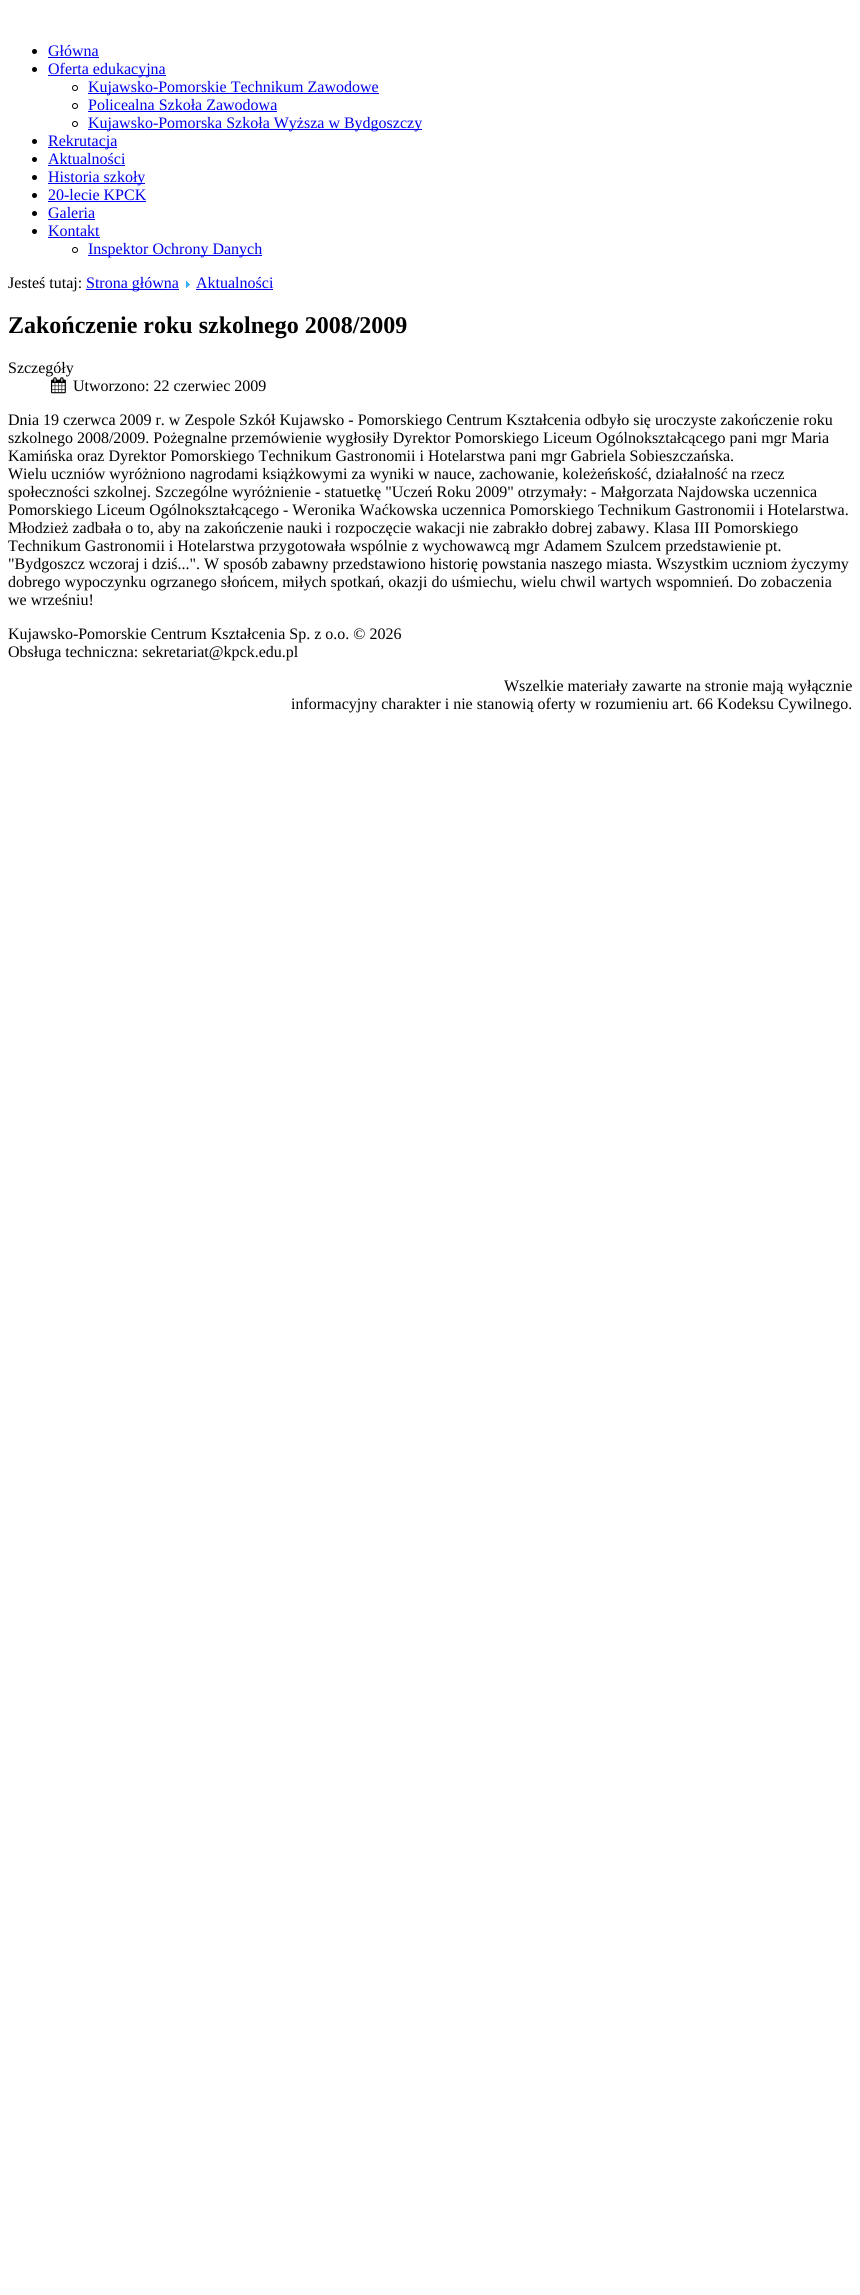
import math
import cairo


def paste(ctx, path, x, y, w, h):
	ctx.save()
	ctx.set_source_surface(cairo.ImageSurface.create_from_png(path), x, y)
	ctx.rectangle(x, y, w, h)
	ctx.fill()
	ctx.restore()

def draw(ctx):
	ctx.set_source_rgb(1, 1, 1)
	ctx.paint()
	ctx.set_source_rgb(0, 0, 0)
	ctx.arc(34.5, 51.5, 2.5, 0, 2 * math.pi)
	ctx.fill()
	ctx.select_font_face('Liberation Serif')
	ctx.set_font_size(16)
	ctx.set_source_rgb(0, 0, 0.933)
	ctx.move_to(48, 56)
	ctx.show_text('Główna')
	ctx.rectangle(48, 57, 51, 1)
	ctx.fill()
	ctx.set_source_rgb(0, 0, 0)
	ctx.arc(34.5, 69.5, 2.5, 0, 2 * math.pi)
	ctx.fill()
	ctx.set_source_rgb(0, 0, 0.933)
	ctx.rectangle(48, 75, 118, 1)
	ctx.fill()
	ctx.move_to(48, 74)
	ctx.show_text('Oferta edukacyjna')
	ctx.new_path()
	ctx.arc(75, 88, 2.5, 0, 2 * math.pi)
	ctx.set_source_rgb(0, 0, 0)
	ctx.set_line_width(1)
	ctx.stroke()
	ctx.set_source_rgb(0, 0, 0.933)
	ctx.rectangle(88, 93, 291, 1)
	ctx.fill()
	ctx.move_to(88, 92)
	ctx.show_text('Kujawsko-Pomorskie Technikum Zawodowe')
	ctx.new_path()
	ctx.arc(75, 106, 2.5, 0, 2 * math.pi)
	ctx.set_source_rgb(0, 0, 0)
	ctx.stroke()
	ctx.set_source_rgb(0, 0, 0.933)
	ctx.move_to(88, 110)
	ctx.show_text('Policealna Szkoła Zawodowa')
	ctx.rectangle(88, 111, 189, 1)
	ctx.fill()
	ctx.arc(75, 124, 2.5, 0, 2 * math.pi)
	ctx.set_source_rgb(0, 0, 0)
	ctx.stroke()
	ctx.set_source_rgb(0, 0, 0.933)
	ctx.rectangle(88, 129, 334, 1)
	ctx.fill()
	ctx.move_to(88, 128)
	ctx.show_text('Kujawsko-Pomorska Szkoła Wyższa w Bydgoszczy')
	ctx.set_source_rgb(0, 0, 0)
	ctx.new_path()
	ctx.arc(34.5, 141.5, 2.5, 0, 2 * math.pi)
	ctx.fill()
	ctx.set_source_rgb(0, 0, 0.933)
	ctx.rectangle(48, 147, 69, 1)
	ctx.fill()
	ctx.move_to(48, 146)
	ctx.show_text('Rekrutacja')
	ctx.set_source_rgb(0, 0, 0)
	ctx.new_path()
	ctx.arc(34.5, 159.5, 2.5, 0, 2 * math.pi)
	ctx.fill()
	ctx.set_source_rgb(0, 0, 0.933)
	ctx.move_to(48, 164)
	ctx.show_text('Aktualności')
	ctx.rectangle(48, 165, 77, 1)
	ctx.fill()
	ctx.set_source_rgb(0, 0, 0)
	ctx.arc(34.5, 177.5, 2.5, 0, 2 * math.pi)
	ctx.fill()
	ctx.set_source_rgb(0, 0, 0.933)
	ctx.rectangle(48, 183, 97, 1)
	ctx.fill()
	ctx.move_to(48, 182)
	ctx.show_text('Historia szkoły')
	ctx.set_source_rgb(0, 0, 0)
	ctx.new_path()
	ctx.arc(34.5, 195.5, 2.5, 0, 2 * math.pi)
	ctx.fill()
	ctx.set_source_rgb(0, 0, 0.933)
	ctx.move_to(48, 200)
	ctx.show_text('20-lecie KPCK')
	ctx.rectangle(48, 201, 98, 1)
	ctx.fill()
	ctx.set_source_rgb(0, 0, 0)
	ctx.arc(34.5, 213.5, 2.5, 0, 2 * math.pi)
	ctx.fill()
	ctx.set_source_rgb(0, 0, 0.933)
	ctx.move_to(48, 218)
	ctx.show_text('Galeria')
	ctx.rectangle(48, 219, 47, 1)
	ctx.fill()
	ctx.set_source_rgb(0, 0, 0)
	ctx.arc(34.5, 231.5, 2.5, 0, 2 * math.pi)
	ctx.fill()
	ctx.set_source_rgb(0, 0, 0.933)
	ctx.move_to(48, 236)
	ctx.show_text('Kontakt')
	ctx.rectangle(48, 237, 52, 1)
	ctx.fill()
	ctx.arc(75, 250, 2.5, 0, 2 * math.pi)
	ctx.set_source_rgb(0, 0, 0)
	ctx.stroke()
	ctx.set_source_rgb(0, 0, 0.933)
	ctx.rectangle(88, 255, 174, 1)
	ctx.fill()
	ctx.move_to(88, 254)
	ctx.show_text('Inspektor Ochrony Danych')
	ctx.set_source_rgb(0, 0, 0)
	ctx.move_to(8, 288)
	ctx.show_text('Jesteś tutaj:')
	ctx.set_source_rgb(0, 0, 0.933)
	ctx.rectangle(86, 289, 93, 1)
	ctx.fill()
	ctx.move_to(86, 288)
	ctx.show_text('Strona główna')
	paste(ctx, 'media/1.png', 186, 281, 4, 7)
	ctx.move_to(196, 288)
	ctx.show_text('Aktualności')
	ctx.rectangle(196, 289, 77, 1)
	ctx.fill()
	ctx.select_font_face('Liberation Serif', cairo.FONT_SLANT_NORMAL, cairo.FONT_WEIGHT_BOLD)
	ctx.set_font_size(24)
	ctx.set_source_rgb(0, 0, 0)
	ctx.move_to(8, 333)
	ctx.show_text('Zakończenie roku szkolnego 2008/2009')
	ctx.select_font_face('Liberation Serif')
	ctx.set_font_size(16)
	ctx.move_to(8, 373)
	ctx.show_text('Szczegóły')
	paste(ctx, 'media/2.png', 51, 377, 15, 17)
	for x, y, s in [
		(73, 391, 'Utworzono: 22 czerwiec 2009'),
		(8, 425, 'Dnia 19 czerwca 2009 r. w Zespole Szkół Kujawsko - Pomorskiego Centrum Kształcenia odbyło się uroczyste zakończenie roku'),
		(8, 443, 'szkolnego 2008/2009. Pożegnalne przemówienie wygłosiły Dyrektor Pomorskiego Liceum Ogólnokształcącego pani mgr Maria'),
		(8, 461, 'Kamińska oraz Dyrektor Pomorskiego Technikum Gastronomii i Hotelarstwa pani mgr Gabriela Sobieszczańska.'),
		(8, 479, 'Wielu uczniów wyróżniono nagrodami książkowymi za wyniki w nauce, zachowanie, koleżeńskość, działalność na rzecz'),
		(8, 497, 'społeczności szkolnej. Szczególne wyróżnienie - statuetkę "Uczeń Roku 2009" otrzymały: - Małgorzata Najdowska uczennica'),
		(8, 515, 'Pomorskiego Liceum Ogólnokształcącego - Weronika Waćkowska uczennica Pomorskiego Technikum Gastronomii i Hotelarstwa.'),
		(8, 533, 'Młodzież zadbała o to, aby na zakończenie nauki i rozpoczęcie wakacji nie zabrakło dobrej zabawy. Klasa III Pomorskiego'),
		(8, 551, 'Technikum Gastronomii i Hotelarstwa przygotowała wspólnie z wychowawcą mgr Adamem Szulcem przedstawienie pt.'),
		(8, 569, '"Bydgoszcz wczoraj i dziś...". W sposób zabawny przedstawiono historię powstania naszego miasta. Wszystkim uczniom życzymy'),
		(8, 587, 'dobrego wypoczynku ogrzanego słońcem, miłych spotkań, okazji do uśmiechu, wielu chwil wartych wspomnień. Do zobaczenia'),
		(8, 605, 'we wrześniu!'),
		(8, 639, 'Kujawsko-Pomorskie Centrum Kształcenia Sp. z o.o. © 2026'),
		(8, 657, 'Obsługa techniczna: sekretariat@kpck.edu.pl'),
		(504, 691, 'Wszelkie materiały zawarte na stronie mają wyłącznie'),
		(291, 709, 'informacyjny charakter i nie stanowią oferty w rozumieniu art. 66 Kodeksu Cywilnego.'),
	]:
		ctx.move_to(x, y)
		ctx.show_text(s)


surface = cairo.ImageSurface(cairo.FORMAT_RGB24, 860, 2295)
ctx = cairo.Context(surface)
options = cairo.FontOptions()
options.set_hint_metrics(cairo.HINT_METRICS_OFF)
options.set_hint_style(cairo.HINT_STYLE_NONE)
ctx.set_font_options(options)
ctx.set_miter_limit(4)
draw(ctx)
surface.write_to_png('image.png')
